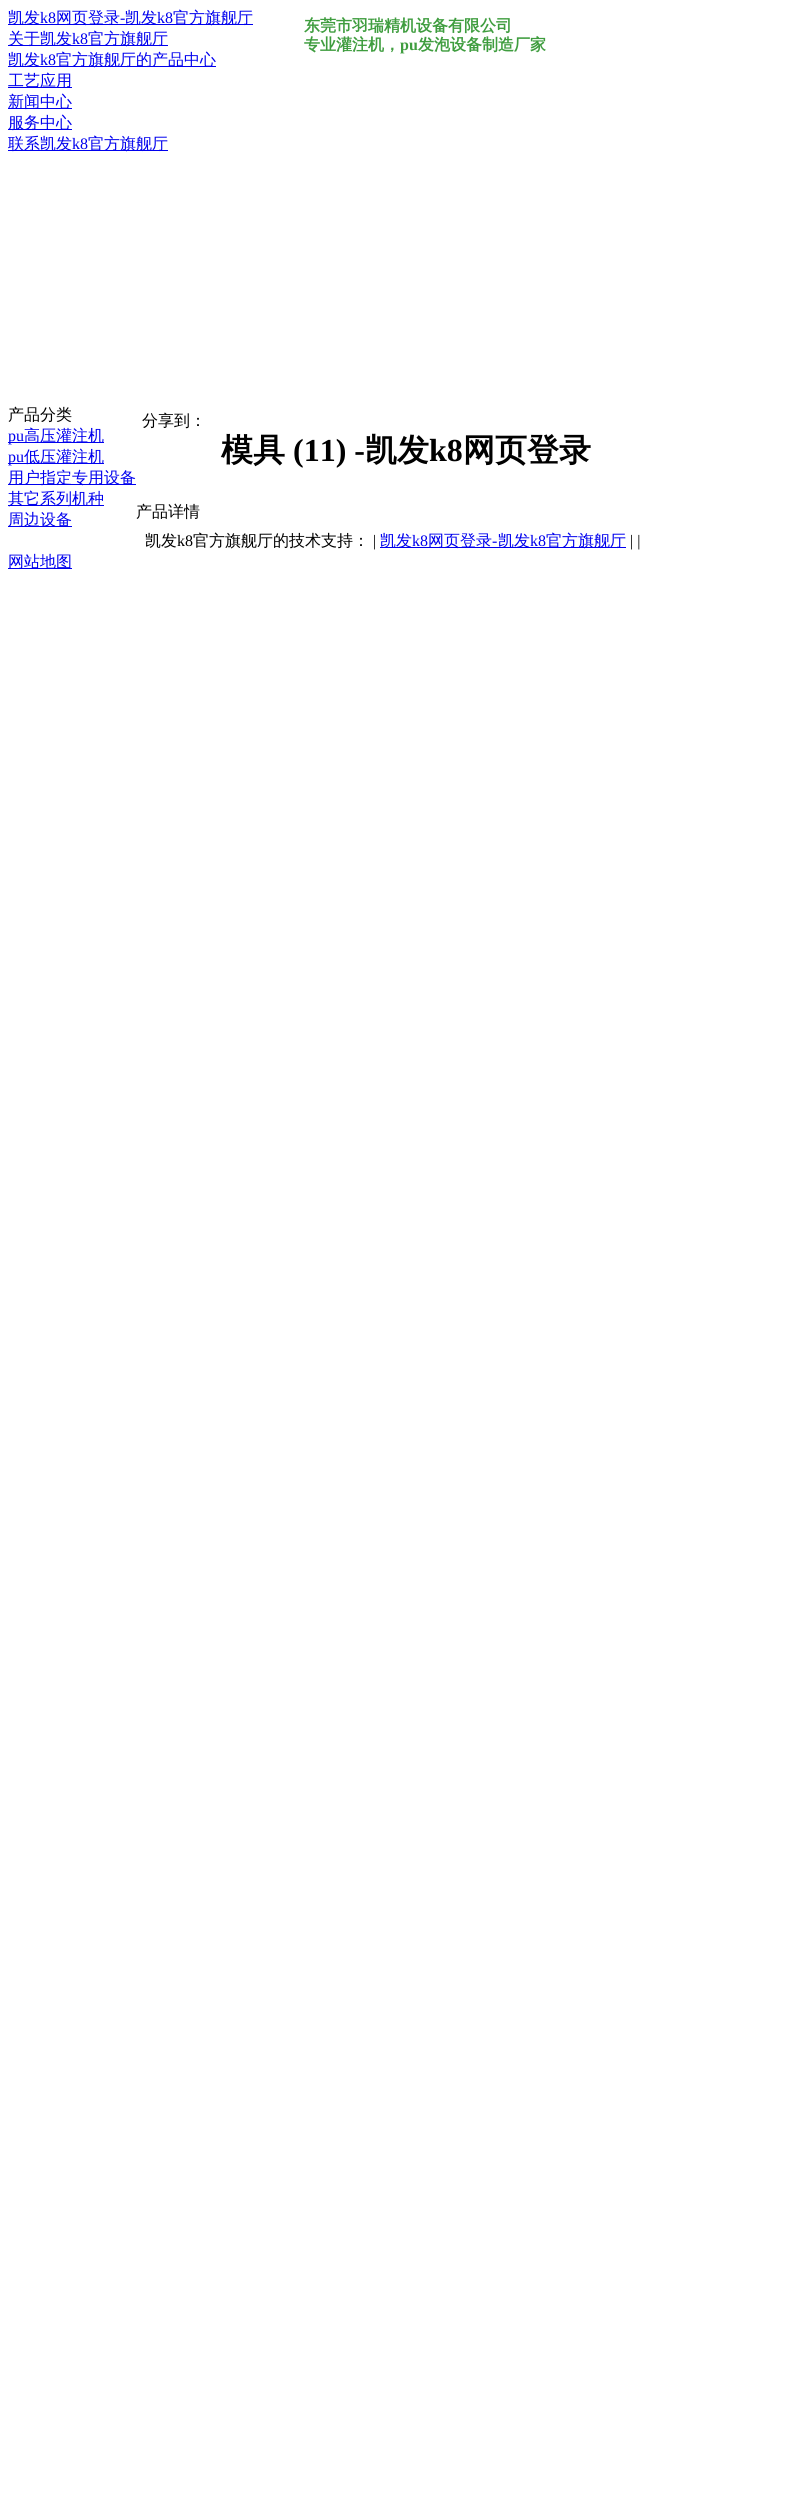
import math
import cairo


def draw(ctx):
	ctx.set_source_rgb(1, 1, 1)
	ctx.paint()
	ctx.set_source_rgb(0, 0, 0.933)
	ctx.rectangle(8, 24, 245, 1)
	ctx.fill()
	ctx.select_font_face('WenQuanYi Zen Hei Medium')
	ctx.set_font_size(16)
	ctx.move_to(8, 23)
	ctx.show_text('凯发')
	ctx.select_font_face('Liberation Serif')
	ctx.move_to(40, 23)
	ctx.show_text('k8')
	ctx.select_font_face('WenQuanYi Zen Hei Medium')
	ctx.move_to(56, 23)
	ctx.show_text('网页登录')
	ctx.select_font_face('Liberation Serif')
	ctx.move_to(120, 23)
	ctx.show_text('-')
	ctx.select_font_face('WenQuanYi Zen Hei Medium')
	ctx.move_to(125, 23)
	ctx.show_text('凯发')
	ctx.select_font_face('Liberation Serif')
	ctx.move_to(157, 23)
	ctx.show_text('k8')
	ctx.select_font_face('WenQuanYi Zen Hei Medium')
	ctx.move_to(173, 23)
	ctx.show_text('官方旗舰厅')
	ctx.rectangle(8, 45, 160, 1)
	ctx.fill()
	ctx.move_to(8, 44)
	ctx.show_text('关于凯发')
	ctx.select_font_face('Liberation Serif')
	ctx.move_to(72, 44)
	ctx.show_text('k8')
	ctx.select_font_face('WenQuanYi Zen Hei Medium')
	ctx.move_to(88, 44)
	ctx.show_text('官方旗舰厅')
	ctx.rectangle(8, 66, 208, 1)
	ctx.fill()
	ctx.move_to(8, 65)
	ctx.show_text('凯发')
	ctx.select_font_face('Liberation Serif')
	ctx.move_to(40, 65)
	ctx.show_text('k8')
	ctx.select_font_face('WenQuanYi Zen Hei Medium')
	ctx.move_to(56, 65)
	ctx.show_text('官方旗舰厅的产品中心')
	ctx.rectangle(8, 87, 64, 1)
	ctx.fill()
	ctx.move_to(8, 86)
	ctx.show_text('工艺应用')
	ctx.rectangle(8, 108, 64, 1)
	ctx.fill()
	ctx.move_to(8, 107)
	ctx.show_text('新闻中心')
	ctx.rectangle(8, 129, 64, 1)
	ctx.fill()
	ctx.move_to(8, 128)
	ctx.show_text('服务中心')
	ctx.rectangle(8, 150, 160, 1)
	ctx.fill()
	ctx.move_to(8, 149)
	ctx.show_text('联系凯发')
	ctx.select_font_face('Liberation Serif')
	ctx.move_to(72, 149)
	ctx.show_text('k8')
	ctx.select_font_face('WenQuanYi Zen Hei Medium')
	ctx.move_to(88, 149)
	ctx.show_text('官方旗舰厅')
	ctx.select_font_face('WenQuanYi Zen Hei', cairo.FONT_SLANT_NORMAL, cairo.FONT_WEIGHT_BOLD)
	ctx.set_source_rgb(0.247, 0.616, 0.247)
	ctx.move_to(304, 31)
	ctx.show_text('东莞市羽瑞精机设备有限公司')
	ctx.move_to(304, 50)
	ctx.show_text('专业灌注机，')
	ctx.select_font_face('Liberation Serif', cairo.FONT_SLANT_NORMAL, cairo.FONT_WEIGHT_BOLD)
	ctx.move_to(400, 50)
	ctx.show_text('pu')
	ctx.select_font_face('WenQuanYi Zen Hei', cairo.FONT_SLANT_NORMAL, cairo.FONT_WEIGHT_BOLD)
	ctx.move_to(418, 50)
	ctx.show_text('发泡设备制造厂家')
	ctx.select_font_face('WenQuanYi Zen Hei Medium')
	ctx.set_source_rgb(0, 0, 0)
	ctx.move_to(8, 420)
	ctx.show_text('产品分类')
	ctx.set_source_rgb(0, 0, 0.933)
	ctx.rectangle(8, 442, 96, 1)
	ctx.fill()
	ctx.select_font_face('Liberation Serif')
	ctx.move_to(8, 441)
	ctx.show_text('pu')
	ctx.select_font_face('WenQuanYi Zen Hei Medium')
	ctx.move_to(24, 441)
	ctx.show_text('高压灌注机')
	ctx.rectangle(8, 463, 96, 1)
	ctx.fill()
	ctx.select_font_face('Liberation Serif')
	ctx.move_to(8, 462)
	ctx.show_text('pu')
	ctx.select_font_face('WenQuanYi Zen Hei Medium')
	ctx.move_to(24, 462)
	ctx.show_text('低压灌注机')
	ctx.rectangle(8, 484, 128, 1)
	ctx.fill()
	ctx.move_to(8, 483)
	ctx.show_text('用户指定专用设备')
	ctx.rectangle(8, 505, 96, 1)
	ctx.fill()
	ctx.move_to(8, 504)
	ctx.show_text('其它系列机种')
	ctx.rectangle(8, 526, 64, 1)
	ctx.fill()
	ctx.move_to(8, 525)
	ctx.show_text('周边设备')
	ctx.set_source_rgb(0, 0, 0)
	ctx.move_to(142, 426)
	ctx.show_text('分享到：')
	ctx.select_font_face('WenQuanYi Zen Hei', cairo.FONT_SLANT_NORMAL, cairo.FONT_WEIGHT_BOLD)
	ctx.set_font_size(32)
	ctx.move_to(221, 461)
	ctx.show_text('模具')
	ctx.select_font_face('Liberation Serif', cairo.FONT_SLANT_NORMAL, cairo.FONT_WEIGHT_BOLD)
	ctx.move_to(293, 461)
	ctx.show_text('(11) -')
	ctx.select_font_face('WenQuanYi Zen Hei', cairo.FONT_SLANT_NORMAL, cairo.FONT_WEIGHT_BOLD)
	ctx.move_to(365, 461)
	ctx.show_text('凯发')
	ctx.select_font_face('Liberation Serif', cairo.FONT_SLANT_NORMAL, cairo.FONT_WEIGHT_BOLD)
	ctx.move_to(429, 461)
	ctx.show_text('k8')
	ctx.select_font_face('WenQuanYi Zen Hei', cairo.FONT_SLANT_NORMAL, cairo.FONT_WEIGHT_BOLD)
	ctx.move_to(463, 461)
	ctx.show_text('网页登录')
	ctx.select_font_face('WenQuanYi Zen Hei Medium')
	ctx.set_font_size(16)
	ctx.move_to(136, 517)
	ctx.show_text('产品详情')
	ctx.move_to(145, 546)
	ctx.show_text('凯发')
	ctx.select_font_face('Liberation Serif')
	ctx.move_to(177, 546)
	ctx.show_text('k8')
	ctx.select_font_face('WenQuanYi Zen Hei Medium')
	ctx.move_to(193, 546)
	ctx.show_text('官方旗舰厅的技术支持：')
	ctx.select_font_face('Liberation Serif')
	ctx.move_to(373, 546)
	ctx.show_text('|')
	ctx.set_source_rgb(0, 0, 0.933)
	ctx.rectangle(380, 547, 246, 1)
	ctx.fill()
	ctx.select_font_face('WenQuanYi Zen Hei Medium')
	ctx.move_to(380, 546)
	ctx.show_text('凯发')
	ctx.select_font_face('Liberation Serif')
	ctx.move_to(412, 546)
	ctx.show_text('k8')
	ctx.select_font_face('WenQuanYi Zen Hei Medium')
	ctx.move_to(428, 546)
	ctx.show_text('网页登录')
	ctx.select_font_face('Liberation Serif')
	ctx.move_to(492, 546)
	ctx.show_text('-')
	ctx.select_font_face('WenQuanYi Zen Hei Medium')
	ctx.move_to(498, 546)
	ctx.show_text('凯发')
	ctx.select_font_face('Liberation Serif')
	ctx.move_to(530, 546)
	ctx.show_text('k8')
	ctx.select_font_face('WenQuanYi Zen Hei Medium')
	ctx.move_to(546, 546)
	ctx.show_text('官方旗舰厅')
	ctx.select_font_face('Liberation Serif')
	ctx.set_source_rgb(0, 0, 0)
	ctx.move_to(630, 546)
	ctx.show_text('| |')
	ctx.set_source_rgb(0, 0, 0.933)
	ctx.rectangle(8, 568, 64, 1)
	ctx.fill()
	ctx.select_font_face('WenQuanYi Zen Hei Medium')
	ctx.move_to(8, 567)
	ctx.show_text('网站地图')


surface = cairo.ImageSurface(cairo.FORMAT_RGB24, 785, 2510)
ctx = cairo.Context(surface)
options = cairo.FontOptions()
options.set_hint_metrics(cairo.HINT_METRICS_OFF)
options.set_hint_style(cairo.HINT_STYLE_NONE)
ctx.set_font_options(options)
ctx.set_miter_limit(4)
draw(ctx)
surface.write_to_png('image.png')
